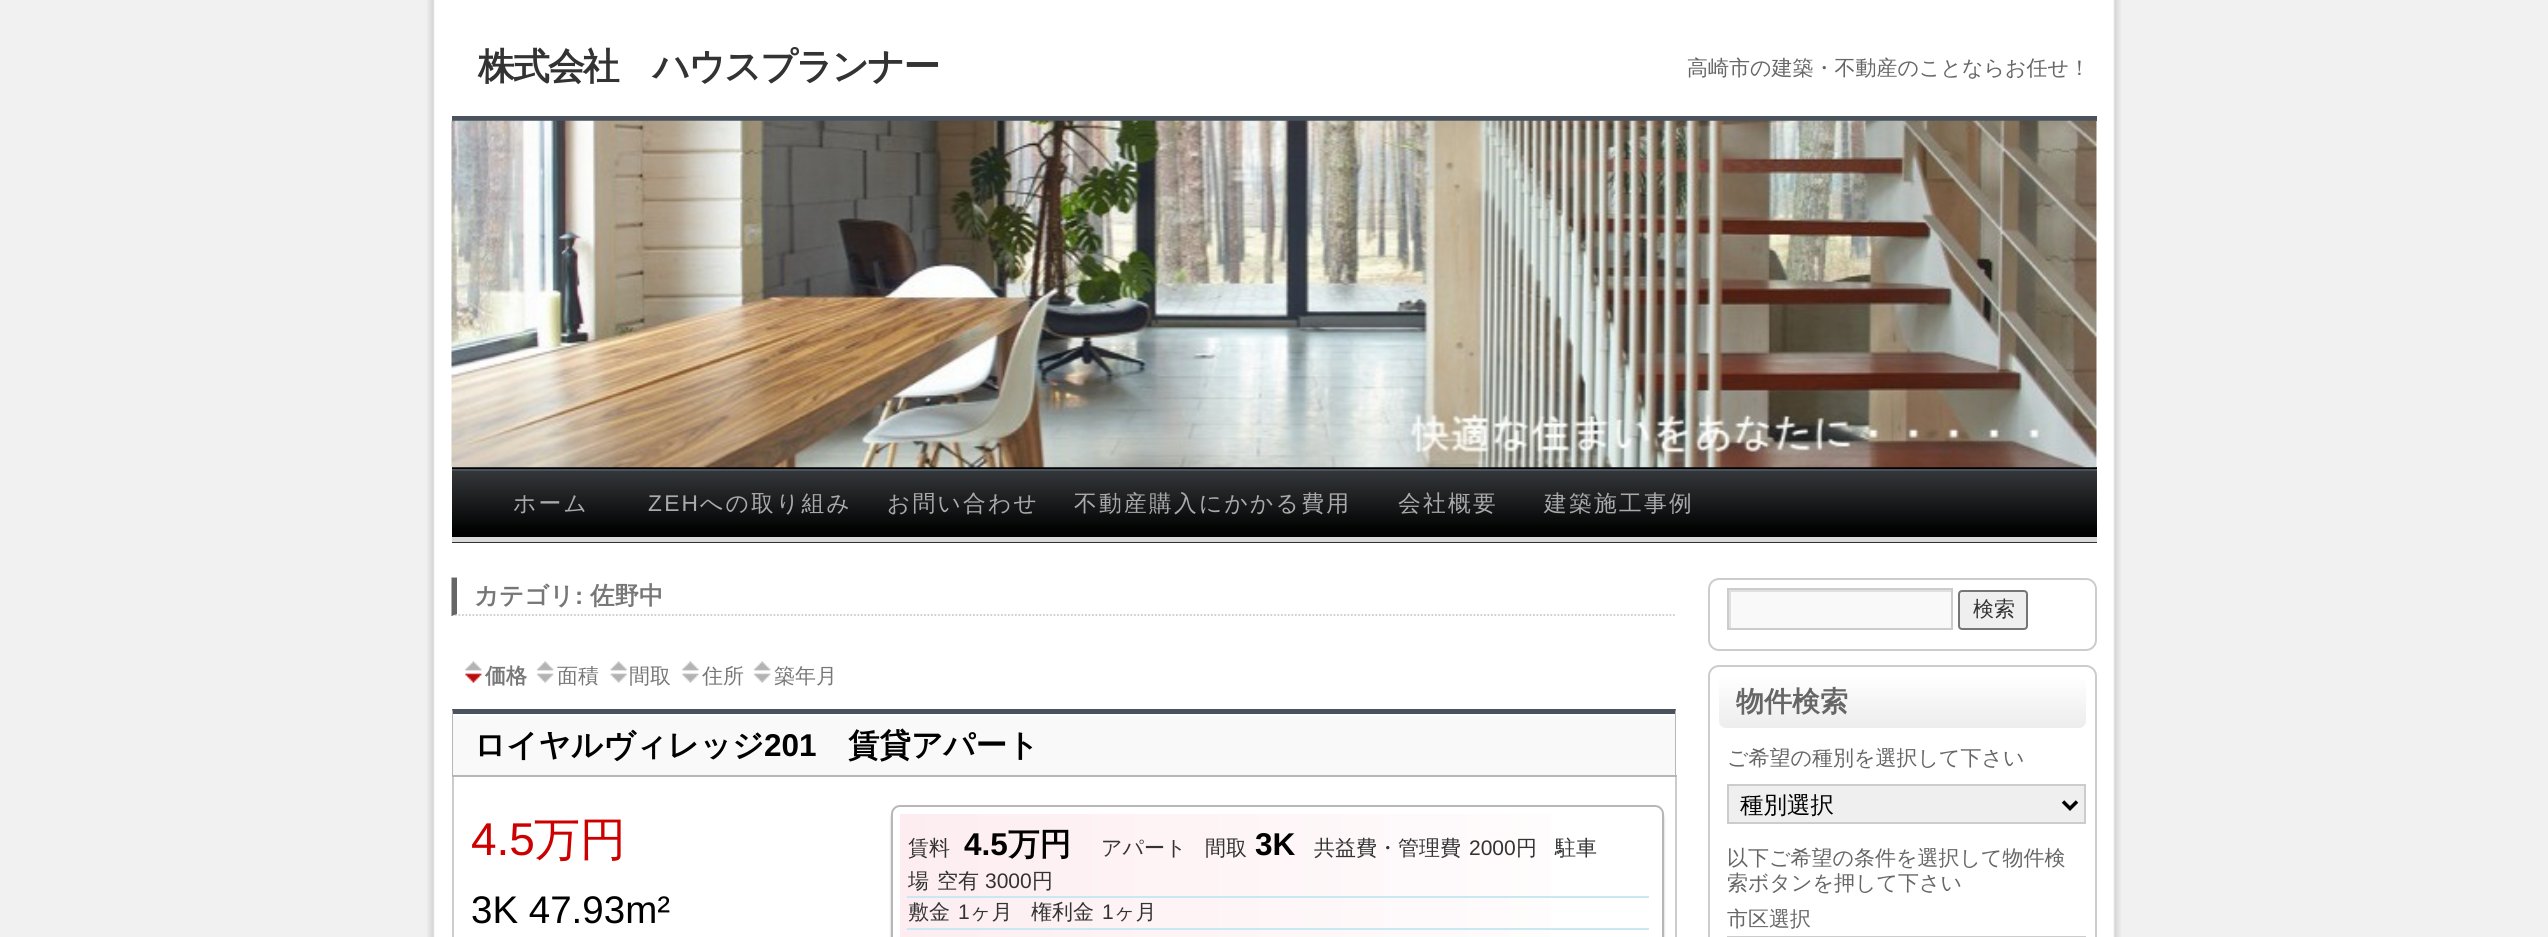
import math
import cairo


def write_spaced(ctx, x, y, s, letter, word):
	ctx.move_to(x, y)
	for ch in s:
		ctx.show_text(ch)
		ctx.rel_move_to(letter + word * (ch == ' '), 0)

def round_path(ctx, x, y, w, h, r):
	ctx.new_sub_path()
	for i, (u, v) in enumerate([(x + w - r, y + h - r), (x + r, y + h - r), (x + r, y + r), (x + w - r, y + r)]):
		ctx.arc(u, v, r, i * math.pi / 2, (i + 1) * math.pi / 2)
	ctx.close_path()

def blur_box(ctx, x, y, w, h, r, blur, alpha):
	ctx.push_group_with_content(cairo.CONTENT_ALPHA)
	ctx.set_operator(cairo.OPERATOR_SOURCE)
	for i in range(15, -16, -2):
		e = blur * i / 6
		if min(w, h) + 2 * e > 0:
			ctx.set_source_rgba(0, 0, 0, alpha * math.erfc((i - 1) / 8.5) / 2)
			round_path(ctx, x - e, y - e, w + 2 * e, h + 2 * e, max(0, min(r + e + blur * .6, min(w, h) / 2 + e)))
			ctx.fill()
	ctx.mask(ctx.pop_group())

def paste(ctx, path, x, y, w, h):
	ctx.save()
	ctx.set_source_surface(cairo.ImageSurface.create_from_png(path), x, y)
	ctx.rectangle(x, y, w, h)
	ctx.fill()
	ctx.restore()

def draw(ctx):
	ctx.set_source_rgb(0.945, 0.945, 0.945)
	ctx.paint()
	paste(ctx, 'media/1.png', 427, 0, 1694, 937)
	ctx.select_font_face('WenQuanYi Zen Hei', cairo.FONT_SLANT_NORMAL, cairo.FONT_WEIGHT_BOLD)
	ctx.set_font_size(36.75)
	ctx.set_source_rgb(0.2, 0.2, 0.2)
	write_spaced(ctx, 478, 79, '株式会社　ハウスプランナー', -1.8, 0)
	ctx.select_font_face('WenQuanYi Zen Hei Medium')
	ctx.set_font_size(21)
	ctx.set_source_rgb(0.4, 0.4, 0.4)
	ctx.move_to(1687, 75)
	ctx.show_text('高崎市の建築・不動産のことならお任せ！')
	ctx.set_source_rgb(0.29, 0.325, 0.365)
	ctx.rectangle(452, 116, 1645, 5)
	ctx.fill()
	ctx.set_source_rgb(0, 0, 0)
	ctx.rectangle(452, 467, 1645, 2)
	ctx.fill()
	paste(ctx, 'media/2.png', 451, 120, 1646, 348)
	gradient = cairo.LinearGradient(452, 471, 452, 537)
	gradient.add_color_stop_rgba(0, 0.204, 0.216, 0.227, 1)
	gradient.add_color_stop_rgba(0.93, 0, 0, 0, 1)
	ctx.set_source(gradient)
	ctx.rectangle(452, 471, 1645, 66)
	ctx.fill()
	gradient = cairo.LinearGradient(452, 537, 452, 604)
	gradient.add_color_stop_rgba(0, 0.204, 0.216, 0.227, 1)
	gradient.add_color_stop_rgba(0.93, 0, 0, 0, 1)
	ctx.set_source(gradient)
	ctx.rectangle(452, 542, 1645, 1)
	ctx.fill()
	ctx.set_source_rgb(0.29, 0.325, 0.365)
	ctx.rectangle(452, 469, 1645, 2)
	ctx.fill()
	ctx.set_source_rgb(0.851, 0.851, 0.851)
	ctx.rectangle(452, 537, 1645, 5)
	ctx.fill()
	ctx.set_font_size(22.75)
	ctx.set_source_rgb(0.667, 0.667, 0.667)
	write_spaced(ctx, 513, 511, 'ホーム', 2.25, 0)
	ctx.select_font_face('Liberation Sans')
	write_spaced(ctx, 648, 511, 'ZEH', 2.25, 0)
	ctx.select_font_face('WenQuanYi Zen Hei Medium')
	for x, y, s in [
		(700, 511, 'への取り組み'),
		(887, 511, 'お問い合わせ'),
		(1074, 511, '不動産購入にかかる費用'),
		(1398, 511, '会社概要'),
		(1544, 511, '建築施工事例'),
	]:
		write_spaced(ctx, x, y, s, 2.25, 0)
	ctx.new_path()
	ctx.move_to(451.5, 615)
	ctx.line_to(1676.5, 615)
	ctx.set_source_rgb(0.8, 0.8, 0.8)
	ctx.set_line_width(1.8)
	ctx.set_dash([1.75, 1.75])
	ctx.stroke()
	ctx.set_source_rgb(0.4, 0.4, 0.4)
	ctx.new_path()
	ctx.move_to(451.5, 616)
	ctx.line_to(451.5, 577.5)
	ctx.line_to(457, 577.5)
	ctx.line_to(457, 614)
	ctx.close_path()
	ctx.fill()
	ctx.select_font_face('WenQuanYi Zen Hei', cairo.FONT_SLANT_NORMAL, cairo.FONT_WEIGHT_BOLD)
	ctx.set_font_size(24.5)
	ctx.set_source_rgb(0.467, 0.467, 0.467)
	ctx.move_to(474, 604)
	ctx.show_text('カテゴリ')
	ctx.select_font_face('Liberation Sans', cairo.FONT_SLANT_NORMAL, cairo.FONT_WEIGHT_BOLD)
	ctx.move_to(575, 604)
	ctx.show_text(':')
	ctx.select_font_face('WenQuanYi Zen Hei', cairo.FONT_SLANT_NORMAL, cairo.FONT_WEIGHT_BOLD)
	ctx.move_to(590, 604)
	ctx.show_text('佐野中')
	paste(ctx, 'media/3.png', 465, 661, 17, 22)
	ctx.set_font_size(21)
	ctx.move_to(485, 683)
	ctx.show_text('価格')
	paste(ctx, 'media/4.png', 536, 661, 18, 22)
	ctx.select_font_face('WenQuanYi Zen Hei Medium')
	ctx.move_to(557, 683)
	ctx.show_text('面積')
	paste(ctx, 'media/5.png', 610, 661, 17, 22)
	ctx.move_to(629, 683)
	ctx.show_text('間取')
	paste(ctx, 'media/6.png', 682, 661, 17, 22)
	ctx.move_to(702, 683)
	ctx.show_text('住所')
	paste(ctx, 'media/7.png', 753, 661, 18, 22)
	ctx.move_to(774, 683)
	ctx.show_text('築年月')
	ctx.set_source_rgb(0.29, 0.325, 0.365)
	ctx.new_path()
	ctx.move_to(452, 709)
	ctx.line_to(1676, 709)
	ctx.line_to(1675, 714)
	ctx.line_to(453, 714)
	ctx.close_path()
	ctx.fill()
	ctx.set_source_rgb(0.718, 0.718, 0.718)
	ctx.new_path()
	ctx.move_to(1676, 709)
	ctx.line_to(1676, 777)
	ctx.line_to(1675, 775)
	ctx.line_to(1675, 714)
	ctx.close_path()
	ctx.fill()
	ctx.rectangle(452, 775, 1225, 2)
	ctx.fill()
	ctx.new_path()
	ctx.move_to(452, 777)
	ctx.line_to(452, 709)
	ctx.line_to(453, 714)
	ctx.line_to(453, 775)
	ctx.close_path()
	ctx.fill()
	ctx.set_source_rgb(0.973, 0.973, 0.973)
	ctx.rectangle(453, 716, 1222, 59)
	ctx.fill()
	ctx.select_font_face('WenQuanYi Zen Hei', cairo.FONT_SLANT_NORMAL, cairo.FONT_WEIGHT_BOLD)
	ctx.set_font_size(31.5)
	ctx.set_source_rgb(0, 0, 0)
	ctx.move_to(474, 756)
	ctx.show_text('ロイヤルヴィレッジ')
	ctx.select_font_face('Liberation Sans', cairo.FONT_SLANT_NORMAL, cairo.FONT_WEIGHT_BOLD)
	ctx.move_to(764, 756)
	ctx.show_text('201')
	ctx.select_font_face('WenQuanYi Zen Hei', cairo.FONT_SLANT_NORMAL, cairo.FONT_WEIGHT_BOLD)
	ctx.move_to(848, 756)
	ctx.show_text('賃貸アパート')
	ctx.set_source_rgb(0.8, 0.8, 0.8)
	ctx.rectangle(1675, 777, 2, 160)
	ctx.fill()
	ctx.rectangle(452, 777, 2, 160)
	ctx.fill()
	ctx.select_font_face('Liberation Sans')
	ctx.set_font_size(46)
	ctx.set_source_rgb(0.8, 0, 0)
	ctx.move_to(471, 855)
	ctx.show_text('4.5')
	ctx.select_font_face('WenQuanYi Zen Hei Medium')
	ctx.move_to(534, 855)
	ctx.show_text('万円')
	ctx.select_font_face('Liberation Sans')
	ctx.set_font_size(38.5)
	ctx.set_source_rgb(0, 0, 0)
	ctx.move_to(471, 923)
	ctx.show_text('3K 47.93m²')
	ctx.save()
	ctx.set_fill_rule(cairo.FILL_RULE_EVEN_ODD)
	ctx.new_path()
	ctx.move_to(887, 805)
	ctx.line_to(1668, 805)
	ctx.line_to(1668, 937)
	ctx.line_to(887, 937)
	ctx.close_path()
	ctx.move_to(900, 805)
	ctx.line_to(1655, 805)
	ctx.curve_to(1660, 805, 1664, 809, 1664, 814)
	ctx.line_to(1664, 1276)
	ctx.curve_to(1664, 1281, 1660, 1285, 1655, 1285)
	ctx.line_to(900, 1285)
	ctx.curve_to(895, 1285, 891, 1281, 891, 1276)
	ctx.line_to(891, 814)
	ctx.curve_to(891, 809, 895, 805, 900, 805)
	ctx.close_path()
	ctx.clip()
	ctx.set_source_rgb(0.745, 0.761, 0.776)
	blur_box(ctx, 891, 809, 773, 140, 9, 1, 1)
	ctx.restore()
	round_path(ctx, 892, 806, 771, 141, 8)
	ctx.set_source_rgb(0.718, 0.718, 0.718)
	ctx.set_line_width(2)
	ctx.set_dash([])
	ctx.stroke()
	gradient = cairo.LinearGradient(900, 814, 1656, 814)
	gradient.add_color_stop_rgba(0, 0.992, 0.929, 0.941, 1)
	gradient.add_color_stop_rgba(1, 1, 1, 1, 1)
	ctx.set_source(gradient)
	ctx.rectangle(900, 814, 651, 123)
	ctx.fill()
	ctx.set_source_rgb(0.792, 0.906, 0.957)
	ctx.rectangle(907, 896, 742, 2)
	ctx.fill()
	ctx.select_font_face('WenQuanYi Zen Hei Medium')
	ctx.set_font_size(21)
	ctx.set_source_rgb(0.2, 0.2, 0.2)
	ctx.move_to(908, 855)
	ctx.show_text('賃料')
	ctx.select_font_face('Liberation Sans', cairo.FONT_SLANT_NORMAL, cairo.FONT_WEIGHT_BOLD)
	ctx.set_font_size(31.5)
	ctx.set_source_rgb(0, 0, 0)
	ctx.move_to(964, 855)
	ctx.show_text('4.5')
	ctx.select_font_face('WenQuanYi Zen Hei', cairo.FONT_SLANT_NORMAL, cairo.FONT_WEIGHT_BOLD)
	ctx.move_to(1008, 855)
	ctx.show_text('万円')
	ctx.select_font_face('WenQuanYi Zen Hei Medium')
	ctx.set_font_size(21)
	ctx.set_source_rgb(0.2, 0.2, 0.2)
	ctx.move_to(1101, 855)
	ctx.show_text('アパート')
	ctx.move_to(1205, 855)
	ctx.show_text('間取')
	ctx.select_font_face('Liberation Sans', cairo.FONT_SLANT_NORMAL, cairo.FONT_WEIGHT_BOLD)
	ctx.set_font_size(31.5)
	ctx.set_source_rgb(0, 0, 0)
	ctx.move_to(1255, 855)
	ctx.show_text('3K')
	ctx.select_font_face('WenQuanYi Zen Hei Medium')
	ctx.set_font_size(21)
	ctx.set_source_rgb(0.2, 0.2, 0.2)
	ctx.move_to(1314, 855)
	ctx.show_text('共益費・管理費')
	ctx.select_font_face('Liberation Sans')
	ctx.move_to(1469, 855)
	ctx.show_text('2000')
	ctx.select_font_face('WenQuanYi Zen Hei Medium')
	for x, y, s in [
		(1516, 855, '円'),
		(1555, 855, '駐車'),
		(908, 888, '場'),
		(937, 888, '空有'),
	]:
		ctx.move_to(x, y)
		ctx.show_text(s)
	ctx.select_font_face('Liberation Sans')
	ctx.move_to(985, 888)
	ctx.show_text('3000')
	ctx.select_font_face('WenQuanYi Zen Hei Medium')
	ctx.move_to(1032, 888)
	ctx.show_text('円')
	ctx.set_source_rgb(0.792, 0.906, 0.957)
	ctx.rectangle(907, 928, 742, 2)
	ctx.fill()
	ctx.set_source_rgb(0.2, 0.2, 0.2)
	ctx.move_to(908, 919)
	ctx.show_text('敷金')
	ctx.select_font_face('Liberation Sans')
	ctx.move_to(958, 919)
	ctx.show_text('1')
	ctx.select_font_face('WenQuanYi Zen Hei Medium')
	ctx.move_to(970, 919)
	ctx.show_text('ヶ月')
	ctx.move_to(1031, 919)
	ctx.show_text('権利金')
	ctx.select_font_face('Liberation Sans')
	ctx.move_to(1102, 919)
	ctx.show_text('1')
	ctx.select_font_face('WenQuanYi Zen Hei Medium')
	ctx.move_to(1114, 919)
	ctx.show_text('ヶ月')
	round_path(ctx, 1709, 579, 387, 71, 10)
	ctx.set_source_rgb(0.8, 0.8, 0.8)
	ctx.stroke()
	ctx.set_source_rgb(0.976, 0.976, 0.976)
	ctx.rectangle(1731, 592, 220, 36)
	ctx.fill()
	ctx.save()
	ctx.rectangle(1729, 590, 222, 38)
	ctx.clip()
	ctx.set_source_rgb(0.878, 0.878, 0.878)
	ctx.set_fill_rule(cairo.FILL_RULE_EVEN_ODD)
	ctx.new_path()
	ctx.move_to(1556, 416)
	ctx.line_to(2124, 416)
	ctx.line_to(2124, 802)
	ctx.line_to(1556, 802)
	ctx.close_path()
	ctx.move_to(1731, 592)
	ctx.line_to(1953, 592)
	ctx.line_to(1953, 630)
	ctx.line_to(1731, 630)
	ctx.close_path()
	ctx.fill()
	ctx.restore()
	ctx.rectangle(1728, 589, 224, 40)
	ctx.set_source_rgb(0.8, 0.8, 0.8)
	ctx.stroke()
	ctx.set_source_rgb(0.937, 0.937, 0.937)
	round_path(ctx, 1959, 591, 68, 38, 3)
	ctx.fill_preserve()
	ctx.set_source_rgb(0.463, 0.463, 0.463)
	ctx.stroke()
	ctx.set_source_rgb(0.2, 0.2, 0.2)
	ctx.move_to(1973, 616)
	ctx.show_text('検索')
	round_path(ctx, 1709, 666, 387, 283, 10)
	ctx.set_source_rgb(0.8, 0.8, 0.8)
	ctx.stroke()
	gradient = cairo.LinearGradient(1719, 676, 1719, 728)
	gradient.add_color_stop_rgba(0, 1, 1, 1, 1)
	gradient.add_color_stop_rgba(0.47, 0.965, 0.965, 0.965, 1)
	gradient.add_color_stop_rgba(1, 0.929, 0.929, 0.929, 1)
	ctx.set_source(gradient)
	round_path(ctx, 1719, 676, 367, 52, 7)
	ctx.fill()
	ctx.select_font_face('WenQuanYi Zen Hei', cairo.FONT_SLANT_NORMAL, cairo.FONT_WEIGHT_BOLD)
	ctx.set_font_size(28)
	ctx.set_source_rgb(0.4, 0.4, 0.4)
	ctx.move_to(1736, 711)
	ctx.show_text('物件検索')
	ctx.select_font_face('WenQuanYi Zen Hei Medium')
	ctx.set_font_size(21)
	ctx.move_to(1727, 765)
	ctx.show_text('ご希望の種別を選択して下さい')
	ctx.set_source_rgb(0.937, 0.937, 0.937)
	ctx.rectangle(1728, 785, 357, 38)
	ctx.fill_preserve()
	ctx.set_source_rgb(0.8, 0.8, 0.8)
	ctx.stroke()
	ctx.new_path()
	ctx.move_to(2063, 801.5)
	ctx.line_to(2070, 808.5)
	ctx.line_to(2077, 801.5)
	ctx.set_source_rgb(0, 0, 0)
	ctx.set_line_width(3.5)
	ctx.stroke()
	ctx.set_font_size(23.5)
	ctx.move_to(1740, 813)
	ctx.show_text('種別選択')
	ctx.set_font_size(21)
	ctx.set_source_rgb(0.4, 0.4, 0.4)
	for x, y, s in [
		(1727, 865, '以下ご希望の条件を選択して物件検'),
		(1727, 890, '索ボタンを押して下さい'),
		(1727, 926, '市区選択'),
	]:
		ctx.move_to(x, y)
		ctx.show_text(s)
	ctx.rectangle(1728, 937, 357, 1)
	ctx.set_source_rgb(0.8, 0.8, 0.8)
	ctx.set_line_width(2)
	ctx.stroke()


surface = cairo.ImageSurface(cairo.FORMAT_RGB24, 2548, 937)
ctx = cairo.Context(surface)
options = cairo.FontOptions()
options.set_hint_metrics(cairo.HINT_METRICS_OFF)
options.set_hint_style(cairo.HINT_STYLE_NONE)
ctx.set_font_options(options)
ctx.set_miter_limit(4)
draw(ctx)
surface.write_to_png('image.png')
